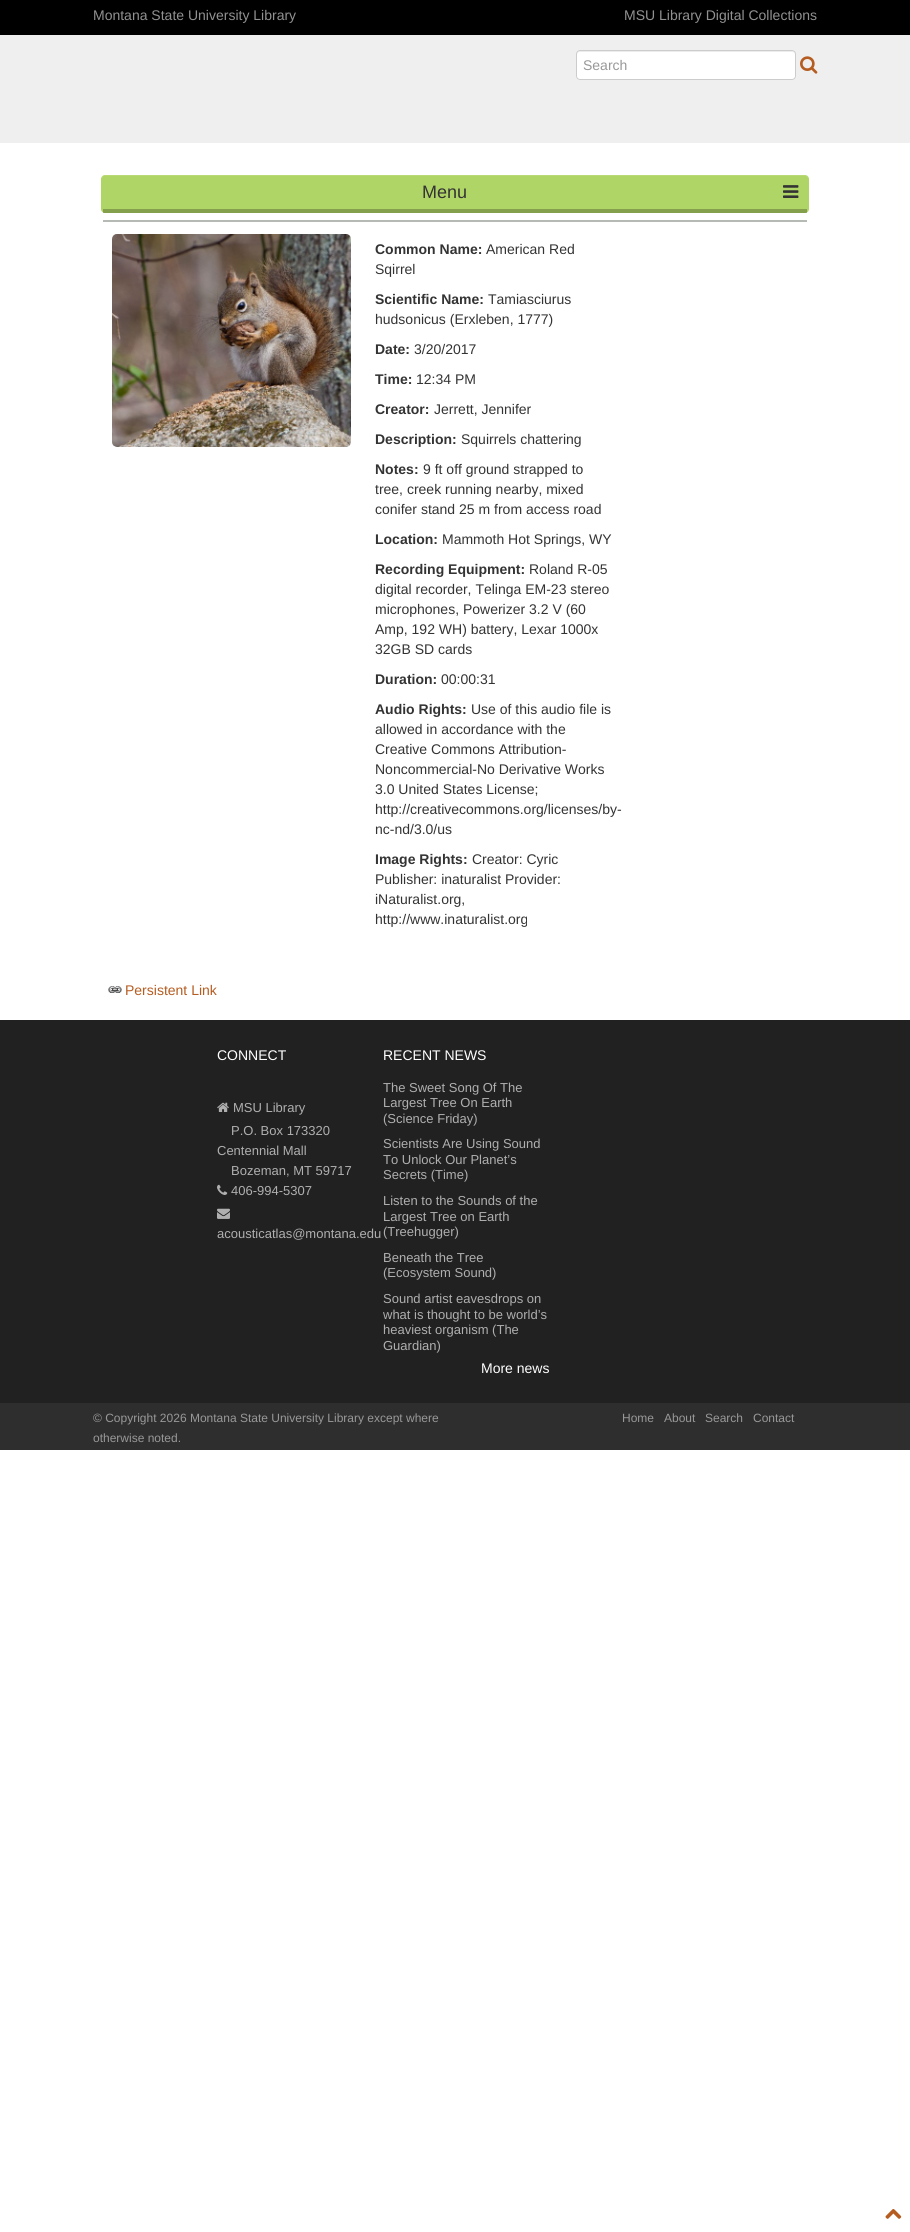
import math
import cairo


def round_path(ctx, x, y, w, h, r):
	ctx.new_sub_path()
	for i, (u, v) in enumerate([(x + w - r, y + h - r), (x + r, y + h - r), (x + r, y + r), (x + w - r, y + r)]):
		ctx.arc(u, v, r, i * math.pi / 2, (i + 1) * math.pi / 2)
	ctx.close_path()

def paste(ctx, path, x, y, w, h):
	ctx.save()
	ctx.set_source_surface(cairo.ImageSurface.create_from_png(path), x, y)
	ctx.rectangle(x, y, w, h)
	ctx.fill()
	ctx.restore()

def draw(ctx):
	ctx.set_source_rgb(1, 1, 1)
	ctx.paint()
	ctx.set_source_rgb(0, 0, 0)
	ctx.rectangle(0, 0, 910, 35)
	ctx.fill()
	ctx.select_font_face('Liberation Sans')
	ctx.set_font_size(14)
	ctx.set_source_rgb(0.569, 0.569, 0.569)
	ctx.move_to(93, 20)
	ctx.show_text('Montana State University Library')
	ctx.move_to(624, 20)
	ctx.show_text('MSU Library Digital Collections')
	ctx.set_source_rgb(0.937, 0.937, 0.937)
	ctx.rectangle(0, 35, 910, 108)
	ctx.fill()
	ctx.set_source_rgb(1, 1, 1)
	round_path(ctx, 576, 50, 220, 30, 4)
	ctx.fill()
	ctx.set_source_rgb(0.925, 0.925, 0.925)
	ctx.new_path()
	ctx.move_to(580, 52)
	ctx.line_to(792, 52)
	ctx.curve_to(794, 52, 795, 53, 795, 55)
	ctx.line_to(795, 54)
	ctx.curve_to(795, 52, 794, 51, 792, 51)
	ctx.line_to(580, 51)
	ctx.curve_to(578, 51, 577, 52, 577, 54)
	ctx.line_to(577, 55)
	ctx.curve_to(577, 53, 578, 52, 580, 52)
	ctx.close_path()
	ctx.fill()
	round_path(ctx, 576.5, 50.5, 219, 29, 3.5)
	ctx.set_source_rgb(0.8, 0.8, 0.8)
	ctx.set_line_width(1)
	ctx.stroke()
	ctx.set_source_rgb(0.6, 0.596, 0.596)
	ctx.move_to(583, 70)
	ctx.show_text('Search')
	paste(ctx, 'media/1.png', 800, 56, 18, 18)
	ctx.set_source_rgb(0.69, 0.835, 0.404)
	round_path(ctx, 101, 175, 708, 38, 4)
	ctx.fill()
	ctx.set_source_rgba(1, 1, 1, 0.1)
	ctx.new_path()
	ctx.move_to(105, 176)
	ctx.line_to(805, 176)
	ctx.curve_to(807, 176, 809, 178, 809, 180)
	ctx.curve_to(809, 177, 808, 175, 805, 175)
	ctx.line_to(105, 175)
	ctx.line_to(102, 176)
	ctx.line_to(101, 177)
	ctx.line_to(101, 180)
	ctx.curve_to(101, 178, 103, 176, 105, 176)
	ctx.close_path()
	ctx.fill()
	ctx.set_source_rgba(0, 0, 0, 0.25)
	ctx.rectangle(103, 209, 704, 4)
	ctx.fill()
	ctx.set_font_size(18)
	ctx.set_source_rgb(0.2, 0.2, 0.2)
	ctx.move_to(422, 198)
	ctx.show_text('Menu')
	paste(ctx, 'media/2.png', 783, 185, 16, 13)
	ctx.set_source_rgb(0.71, 0.729, 0.706)
	ctx.rectangle(103, 220, 704, 2)
	ctx.fill()
	paste(ctx, 'media/3.png', 112, 234, 239, 213)
	ctx.select_font_face('Liberation Sans', cairo.FONT_SLANT_NORMAL, cairo.FONT_WEIGHT_BOLD)
	ctx.set_font_size(14)
	ctx.set_source_rgb(0.2, 0.2, 0.2)
	ctx.move_to(375, 254)
	ctx.show_text('Common Name:')
	ctx.select_font_face('Liberation Sans')
	ctx.move_to(486, 254)
	ctx.show_text('American Red')
	ctx.move_to(375, 274)
	ctx.show_text('Sqirrel')
	ctx.select_font_face('Liberation Sans', cairo.FONT_SLANT_NORMAL, cairo.FONT_WEIGHT_BOLD)
	ctx.move_to(375, 304)
	ctx.show_text('Scientific Name:')
	ctx.select_font_face('Liberation Sans')
	ctx.move_to(488, 304)
	ctx.show_text('Tamiasciurus')
	ctx.move_to(375, 324)
	ctx.show_text('hudsonicus (Erxleben, 1777)')
	ctx.select_font_face('Liberation Sans', cairo.FONT_SLANT_NORMAL, cairo.FONT_WEIGHT_BOLD)
	ctx.move_to(375, 354)
	ctx.show_text('Date:')
	ctx.select_font_face('Liberation Sans')
	ctx.move_to(414, 354)
	ctx.show_text('3/20/2017')
	ctx.select_font_face('Liberation Sans', cairo.FONT_SLANT_NORMAL, cairo.FONT_WEIGHT_BOLD)
	ctx.move_to(375, 384)
	ctx.show_text('Time:')
	ctx.select_font_face('Liberation Sans')
	ctx.move_to(416, 384)
	ctx.show_text('12:34 PM')
	ctx.select_font_face('Liberation Sans', cairo.FONT_SLANT_NORMAL, cairo.FONT_WEIGHT_BOLD)
	ctx.move_to(375, 414)
	ctx.show_text('Creator:')
	ctx.select_font_face('Liberation Sans')
	ctx.move_to(434, 414)
	ctx.show_text('Jerrett, Jennifer')
	ctx.select_font_face('Liberation Sans', cairo.FONT_SLANT_NORMAL, cairo.FONT_WEIGHT_BOLD)
	ctx.move_to(375, 444)
	ctx.show_text('Description:')
	ctx.select_font_face('Liberation Sans')
	ctx.move_to(461, 444)
	ctx.show_text('Squirrels chattering')
	ctx.select_font_face('Liberation Sans', cairo.FONT_SLANT_NORMAL, cairo.FONT_WEIGHT_BOLD)
	ctx.move_to(375, 474)
	ctx.show_text('Notes:')
	ctx.select_font_face('Liberation Sans')
	for x, y, s in [
		(423, 474, '9 ft off ground strapped to'),
		(375, 494, 'tree, creek running nearby, mixed'),
		(375, 514, 'conifer stand 25 m from access road'),
	]:
		ctx.move_to(x, y)
		ctx.show_text(s)
	ctx.select_font_face('Liberation Sans', cairo.FONT_SLANT_NORMAL, cairo.FONT_WEIGHT_BOLD)
	ctx.move_to(375, 544)
	ctx.show_text('Location:')
	ctx.select_font_face('Liberation Sans')
	ctx.move_to(442, 544)
	ctx.show_text('Mammoth Hot Springs, WY')
	ctx.select_font_face('Liberation Sans', cairo.FONT_SLANT_NORMAL, cairo.FONT_WEIGHT_BOLD)
	ctx.move_to(375, 574)
	ctx.show_text('Recording Equipment:')
	ctx.select_font_face('Liberation Sans')
	for x, y, s in [
		(529, 574, 'Roland R-05'),
		(375, 594, 'digital recorder, Telinga EM-23 stereo'),
		(375, 614, 'microphones, Powerizer 3.2 V (60'),
		(375, 634, 'Amp, 192 WH) battery, Lexar 1000x'),
		(375, 654, '32GB SD cards'),
	]:
		ctx.move_to(x, y)
		ctx.show_text(s)
	ctx.select_font_face('Liberation Sans', cairo.FONT_SLANT_NORMAL, cairo.FONT_WEIGHT_BOLD)
	ctx.move_to(375, 684)
	ctx.show_text('Duration:')
	ctx.select_font_face('Liberation Sans')
	ctx.move_to(441, 684)
	ctx.show_text('00:00:31')
	ctx.select_font_face('Liberation Sans', cairo.FONT_SLANT_NORMAL, cairo.FONT_WEIGHT_BOLD)
	ctx.move_to(375, 714)
	ctx.show_text('Audio Rights:')
	ctx.select_font_face('Liberation Sans')
	for x, y, s in [
		(471, 714, 'Use of this audio file is'),
		(375, 734, 'allowed in accordance with the'),
		(375, 754, 'Creative Commons Attribution-'),
		(375, 774, 'Noncommercial-No Derivative Works'),
		(375, 794, '3.0 United States License;'),
		(375, 814, 'http://creativecommons.org/licenses/by-'),
		(375, 834, 'nc-nd/3.0/us'),
	]:
		ctx.move_to(x, y)
		ctx.show_text(s)
	ctx.select_font_face('Liberation Sans', cairo.FONT_SLANT_NORMAL, cairo.FONT_WEIGHT_BOLD)
	ctx.move_to(375, 864)
	ctx.show_text('Image Rights:')
	ctx.select_font_face('Liberation Sans')
	for x, y, s in [
		(472, 864, 'Creator: Cyric'),
		(375, 884, 'Publisher: inaturalist Provider:'),
		(375, 904, 'iNaturalist.org,'),
		(375, 924, 'http://www.inaturalist.org'),
	]:
		ctx.move_to(x, y)
		ctx.show_text(s)
	paste(ctx, 'media/4.png', 108, 986, 14, 7)
	ctx.set_source_rgb(0.71, 0.361, 0.129)
	ctx.move_to(125, 995)
	ctx.show_text('Persistent Link')
	ctx.set_source_rgb(0.129, 0.129, 0.129)
	ctx.rectangle(0, 1020, 910, 383)
	ctx.fill()
	ctx.set_source_rgb(1, 1, 1)
	ctx.move_to(217, 1060)
	ctx.show_text('CONNECT')
	paste(ctx, 'media/5.png', 217, 1102, 12, 10)
	ctx.set_font_size(13)
	ctx.set_source_rgb(0.686, 0.686, 0.686)
	for x, y, s in [
		(233, 1112, 'MSU Library'),
		(231, 1135, 'P.O. Box 173320'),
		(217, 1155, 'Centennial Mall'),
		(231, 1175, 'Bozeman, MT 59717'),
	]:
		ctx.move_to(x, y)
		ctx.show_text(s)
	paste(ctx, 'media/6.png', 217, 1184, 11, 11)
	ctx.move_to(231, 1195)
	ctx.show_text('406-994-5307')
	paste(ctx, 'media/7.png', 217, 1208, 13, 11)
	ctx.move_to(217, 1238)
	ctx.show_text('acousticatlas@montana.edu')
	ctx.set_font_size(14)
	ctx.set_source_rgb(1, 1, 1)
	ctx.move_to(383, 1060)
	ctx.show_text('RECENT NEWS')
	ctx.set_font_size(13)
	ctx.set_source_rgb(0.686, 0.686, 0.686)
	for x, y, s in [
		(383, 1092, 'The Sweet Song Of The'),
		(383, 1107, 'Largest Tree On Earth'),
		(383, 1123, '(Science Friday)'),
		(383, 1148, 'Scientists Are Using Sound'),
		(383, 1164, 'To Unlock Our Planet’s'),
		(383, 1179, 'Secrets (Time)'),
		(383, 1205, 'Listen to the Sounds of the'),
		(383, 1221, 'Largest Tree on Earth'),
		(383, 1236, '(Treehugger)'),
		(383, 1262, 'Beneath the Tree'),
		(383, 1277, '(Ecosystem Sound)'),
		(383, 1303, 'Sound artist eavesdrops on'),
		(383, 1319, 'what is thought to be world’s'),
		(383, 1334, 'heaviest organism (The'),
		(383, 1350, 'Guardian)'),
	]:
		ctx.move_to(x, y)
		ctx.show_text(s)
	ctx.set_font_size(14)
	ctx.set_source_rgb(1, 1, 1)
	ctx.move_to(481, 1373)
	ctx.show_text('More news')
	ctx.set_source_rgb(0.18, 0.18, 0.18)
	ctx.rectangle(0, 1403, 910, 47)
	ctx.fill()
	ctx.set_font_size(12)
	ctx.set_source_rgb(0.6, 0.596, 0.596)
	for x, y, s in [
		(93, 1422, '© Copyright 2026 Montana State University Library except where'),
		(93, 1442, 'otherwise noted.'),
		(622, 1422, 'Home'),
		(664, 1422, 'About'),
		(705, 1422, 'Search'),
		(753, 1422, 'Contact'),
	]:
		ctx.move_to(x, y)
		ctx.show_text(s)
	paste(ctx, 'media/8.png', 885, 2209, 17, 10)


surface = cairo.ImageSurface(cairo.FORMAT_RGB24, 910, 2232)
ctx = cairo.Context(surface)
options = cairo.FontOptions()
options.set_hint_metrics(cairo.HINT_METRICS_OFF)
options.set_hint_style(cairo.HINT_STYLE_NONE)
ctx.set_font_options(options)
ctx.set_miter_limit(4)
draw(ctx)
surface.write_to_png('image.png')
